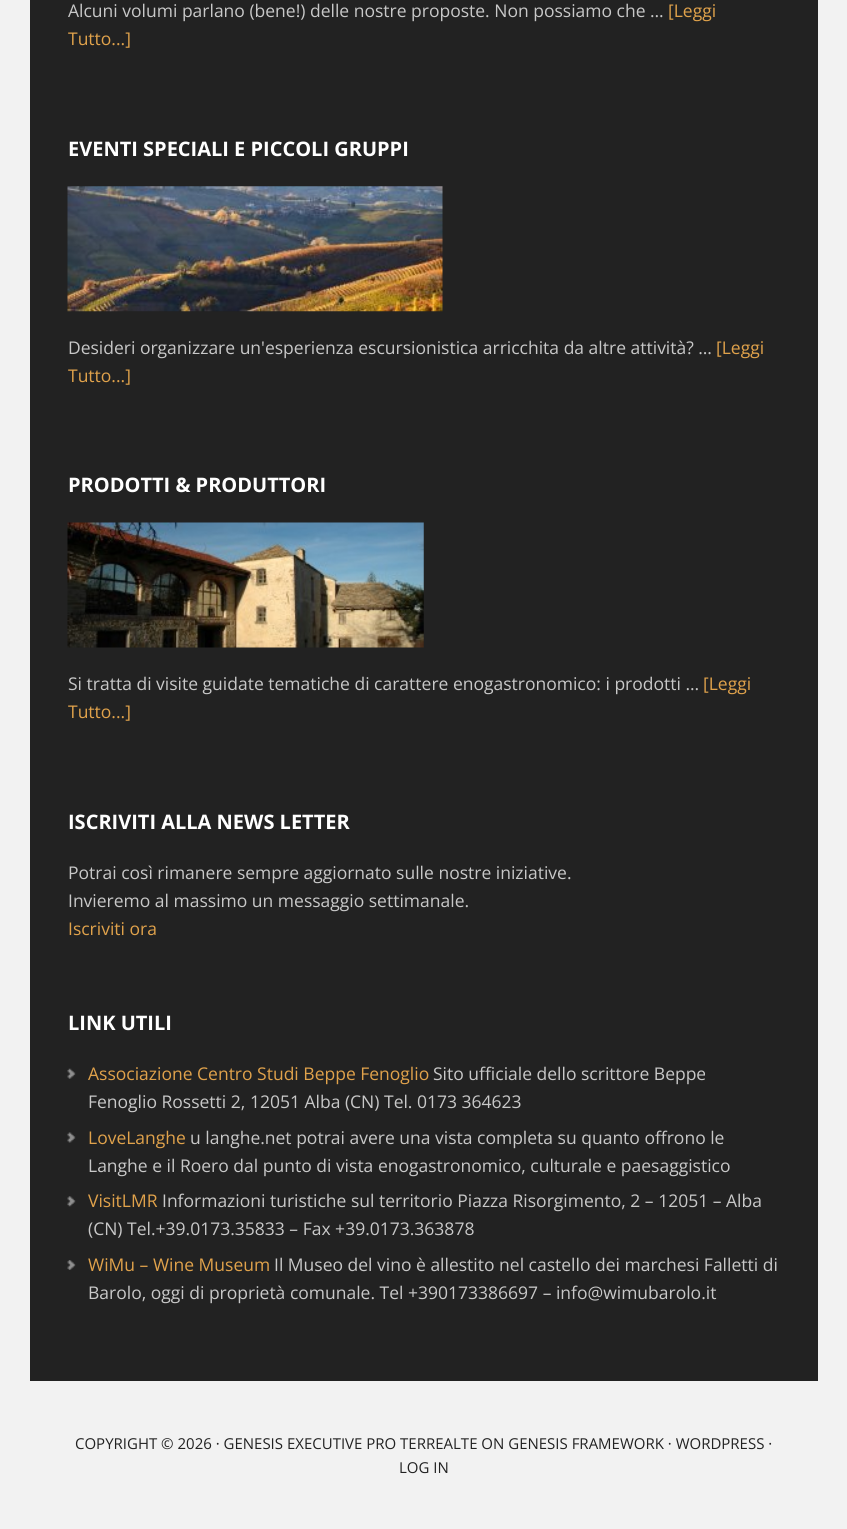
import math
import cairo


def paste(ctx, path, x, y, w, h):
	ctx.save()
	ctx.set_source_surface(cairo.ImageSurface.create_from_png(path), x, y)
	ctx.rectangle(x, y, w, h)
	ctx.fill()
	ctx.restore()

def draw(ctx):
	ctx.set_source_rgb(0.949, 0.949, 0.949)
	ctx.paint()
	ctx.set_source_rgb(0.133, 0.133, 0.133)
	ctx.rectangle(30, 0, 788, 1381)
	ctx.fill()
	ctx.select_font_face('Open Sans')
	ctx.set_font_size(17.5)
	ctx.set_source_rgb(0.784, 0.784, 0.784)
	ctx.move_to(68, 17)
	ctx.show_text('Alcuni volumi parlano (bene!) delle nostre proposte. Non possiamo che …')
	ctx.set_source_rgb(0.878, 0.635, 0.294)
	ctx.move_to(668, 17)
	ctx.show_text('[Leggi')
	ctx.move_to(68, 45)
	ctx.show_text('Tutto...]')
	ctx.select_font_face('Open Sans', cairo.FONT_SLANT_NORMAL, cairo.FONT_WEIGHT_BOLD)
	ctx.set_font_size(20)
	ctx.set_source_rgb(1, 1, 1)
	ctx.move_to(68, 156)
	ctx.show_text('EVENTI SPECIALI E PICCOLI GRUPPI')
	paste(ctx, 'media/1.png', 67, 186, 376, 126)
	ctx.select_font_face('Open Sans')
	ctx.set_font_size(17.5)
	ctx.set_source_rgb(0.784, 0.784, 0.784)
	ctx.move_to(68, 354)
	ctx.show_text('Desideri organizzare un\'esperienza escursionistica arricchita da altre attività? …')
	ctx.set_source_rgb(0.878, 0.635, 0.294)
	ctx.move_to(716, 354)
	ctx.show_text('[Leggi')
	ctx.move_to(68, 382)
	ctx.show_text('Tutto...]')
	ctx.select_font_face('Open Sans', cairo.FONT_SLANT_NORMAL, cairo.FONT_WEIGHT_BOLD)
	ctx.set_font_size(20)
	ctx.set_source_rgb(1, 1, 1)
	ctx.move_to(68, 492)
	ctx.show_text('PRODOTTI & PRODUTTORI')
	paste(ctx, 'media/2.png', 67, 522, 357, 126)
	ctx.select_font_face('Open Sans')
	ctx.set_font_size(17.5)
	ctx.set_source_rgb(0.784, 0.784, 0.784)
	ctx.move_to(68, 690)
	ctx.show_text('Si tratta di visite guidate tematiche di carattere enogastronomico: i prodotti …')
	ctx.set_source_rgb(0.878, 0.635, 0.294)
	ctx.move_to(703, 690)
	ctx.show_text('[Leggi')
	ctx.move_to(68, 718)
	ctx.show_text('Tutto...]')
	ctx.select_font_face('Open Sans', cairo.FONT_SLANT_NORMAL, cairo.FONT_WEIGHT_BOLD)
	ctx.set_font_size(20)
	ctx.set_source_rgb(1, 1, 1)
	ctx.move_to(68, 829)
	ctx.show_text('ISCRIVITI ALLA NEWS LETTER')
	ctx.select_font_face('Open Sans')
	ctx.set_font_size(17.5)
	ctx.set_source_rgb(0.784, 0.784, 0.784)
	ctx.move_to(68, 879)
	ctx.show_text('Potrai così rimanere sempre aggiornato sulle nostre iniziative.')
	ctx.move_to(68, 907)
	ctx.show_text('Invieremo al massimo un messaggio settimanale.')
	ctx.set_source_rgb(0.878, 0.635, 0.294)
	ctx.move_to(68, 935)
	ctx.show_text('Iscriviti ora')
	ctx.select_font_face('Open Sans', cairo.FONT_SLANT_NORMAL, cairo.FONT_WEIGHT_BOLD)
	ctx.set_font_size(20)
	ctx.set_source_rgb(1, 1, 1)
	ctx.move_to(68, 1030)
	ctx.show_text('LINK UTILI')
	paste(ctx, 'media/3.png', 67, 1068, 9, 11)
	ctx.select_font_face('Open Sans')
	ctx.set_font_size(17.5)
	ctx.set_source_rgb(0.878, 0.635, 0.294)
	ctx.move_to(88, 1080)
	ctx.show_text('Associazione Centro Studi Beppe Fenoglio')
	ctx.set_source_rgb(0.784, 0.784, 0.784)
	ctx.move_to(433, 1080)
	ctx.show_text('Sito ufficiale dello scrittore Beppe')
	ctx.move_to(88, 1108)
	ctx.show_text('Fenoglio Rossetti 2, 12051 Alba (CN) Tel. 0173 364623')
	paste(ctx, 'media/4.png', 67, 1132, 9, 11)
	ctx.set_source_rgb(0.878, 0.635, 0.294)
	ctx.move_to(88, 1144)
	ctx.show_text('LoveLanghe')
	ctx.set_source_rgb(0.784, 0.784, 0.784)
	ctx.move_to(190, 1144)
	ctx.show_text('u langhe.net potrai avere una vista completa su quanto offrono le')
	ctx.move_to(88, 1172)
	ctx.show_text('Langhe e il Roero dal punto di vista enogastronomico, culturale e paesaggistico')
	paste(ctx, 'media/5.png', 67, 1196, 9, 11)
	ctx.set_source_rgb(0.878, 0.635, 0.294)
	ctx.move_to(88, 1207)
	ctx.show_text('VisitLMR')
	ctx.set_source_rgb(0.784, 0.784, 0.784)
	ctx.move_to(162, 1207)
	ctx.show_text('Informazioni turistiche sul territorio Piazza Risorgimento, 2 – 12051 – Alba')
	ctx.move_to(88, 1235)
	ctx.show_text('(CN) Tel.+39.0173.35833 – Fax +39.0173.363878')
	paste(ctx, 'media/6.png', 67, 1260, 9, 10)
	ctx.set_source_rgb(0.878, 0.635, 0.294)
	ctx.move_to(88, 1271)
	ctx.show_text('WiMu – Wine Museum')
	ctx.set_source_rgb(0.784, 0.784, 0.784)
	ctx.move_to(274, 1271)
	ctx.show_text('Il Museo del vino è allestito nel castello dei marchesi Falletti di')
	ctx.move_to(88, 1299)
	ctx.show_text('Barolo, oggi di proprietà comunale. Tel +390173386697 – info@wimubarolo.it')
	ctx.set_font_size(15)
	ctx.set_source_rgb(0.133, 0.133, 0.133)
	ctx.move_to(75, 1449)
	ctx.show_text('COPYRIGHT © 2026 · GENESIS EXECUTIVE PRO TERREALTE ON GENESIS FRAMEWORK · WORDPRESS ·')
	ctx.move_to(399, 1473)
	ctx.show_text('LOG IN')


surface = cairo.ImageSurface(cairo.FORMAT_RGB24, 847, 1529)
ctx = cairo.Context(surface)
options = cairo.FontOptions()
options.set_hint_metrics(cairo.HINT_METRICS_OFF)
options.set_hint_style(cairo.HINT_STYLE_NONE)
ctx.set_font_options(options)
ctx.set_miter_limit(4)
draw(ctx)
surface.write_to_png('image.png')
